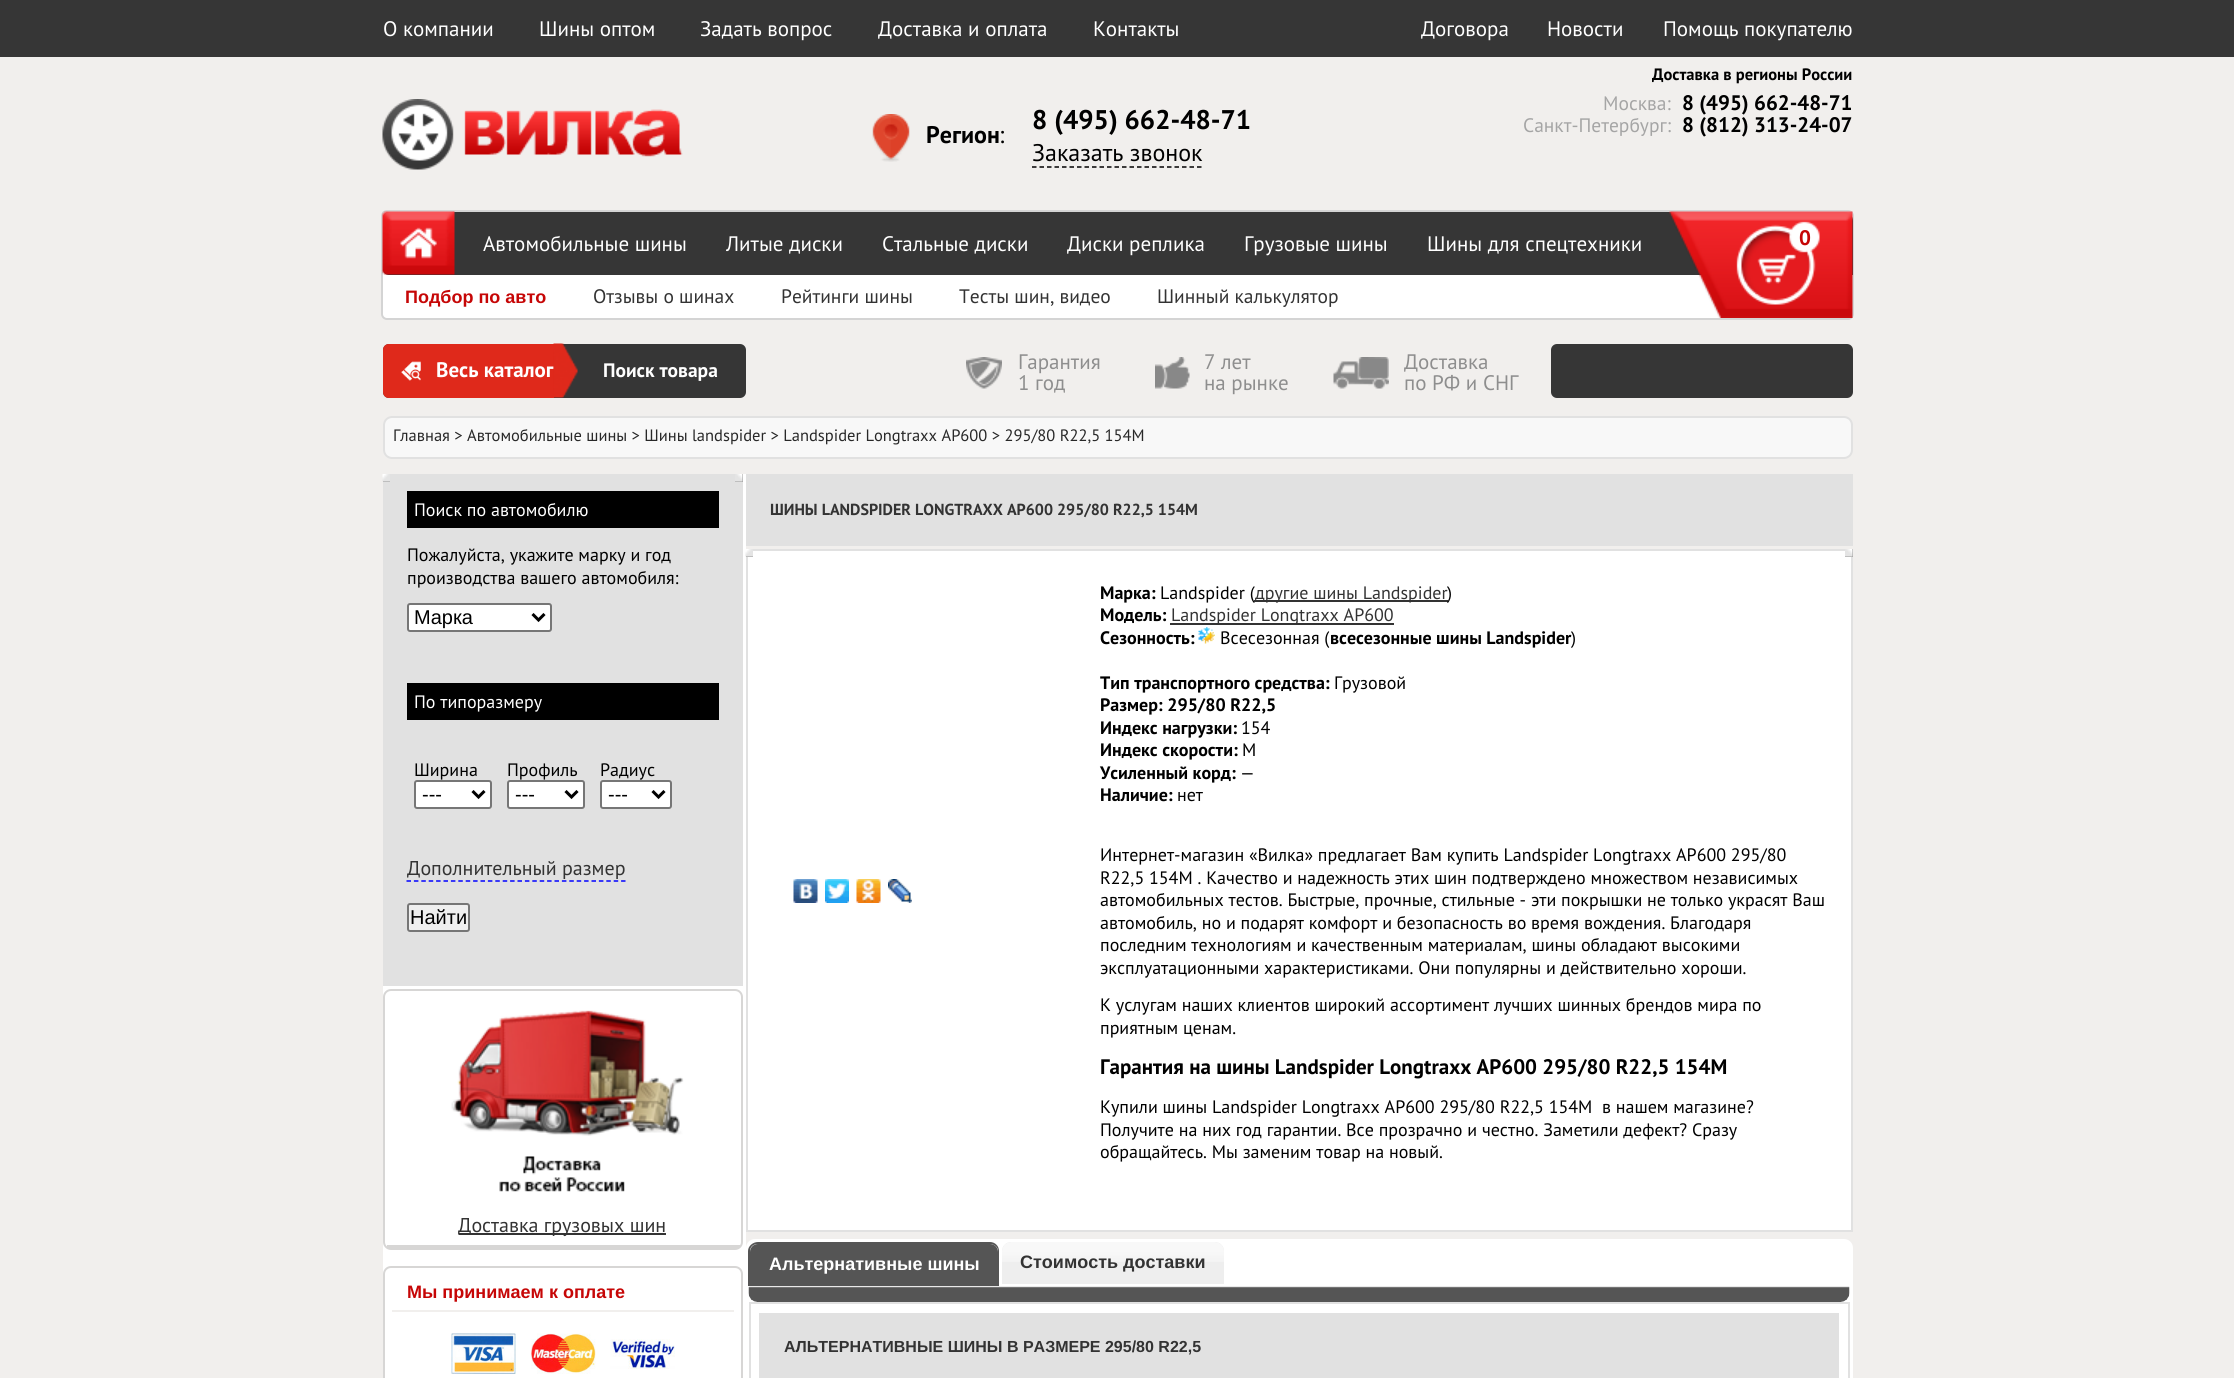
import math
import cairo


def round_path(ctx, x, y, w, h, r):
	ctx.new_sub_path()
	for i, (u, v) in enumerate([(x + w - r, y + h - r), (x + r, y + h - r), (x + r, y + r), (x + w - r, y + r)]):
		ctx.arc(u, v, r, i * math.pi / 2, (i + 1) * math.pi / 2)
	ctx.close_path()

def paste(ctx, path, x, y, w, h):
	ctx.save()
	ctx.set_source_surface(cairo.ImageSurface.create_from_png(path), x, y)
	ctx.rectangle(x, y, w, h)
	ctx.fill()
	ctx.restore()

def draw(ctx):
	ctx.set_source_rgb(0.945, 0.937, 0.929)
	ctx.paint()
	ctx.set_source_rgb(0.212, 0.212, 0.212)
	ctx.rectangle(0, 0, 2234, 57)
	ctx.fill()
	ctx.select_font_face('PT Sans')
	ctx.set_font_size(21)
	ctx.set_source_rgb(1, 1, 1)
	for x, y, s in [
		(383, 36, 'О компании'),
		(539, 36, 'Шины оптом'),
		(700, 36, 'Задать вопрос'),
		(878, 36, 'Доставка и оплата'),
		(1093, 36, 'Контакты'),
		(1421, 36, 'Договора'),
		(1547, 36, 'Новости'),
		(1663, 36, 'Помощь покупателю'),
	]:
		ctx.move_to(x, y)
		ctx.show_text(s)
	paste(ctx, 'media/1.png', 382, 99, 72, 71)
	paste(ctx, 'media/2.png', 464, 109, 219, 48)
	paste(ctx, 'media/3.png', 872, 114, 38, 48)
	ctx.select_font_face('PT Sans', cairo.FONT_SLANT_NORMAL, cairo.FONT_WEIGHT_BOLD)
	ctx.set_font_size(24)
	ctx.set_source_rgb(0, 0, 0)
	ctx.move_to(926, 143)
	ctx.show_text('Регион')
	ctx.select_font_face('PT Sans')
	ctx.move_to(999, 143)
	ctx.show_text(':')
	ctx.select_font_face('PT Sans', cairo.FONT_SLANT_NORMAL, cairo.FONT_WEIGHT_BOLD)
	ctx.set_font_size(27)
	ctx.move_to(1032, 129)
	ctx.show_text('8 (495) 662-48-71')
	ctx.select_font_face('PT Sans')
	ctx.set_font_size(24)
	ctx.move_to(1032, 161)
	ctx.show_text('Заказать звонок')
	ctx.new_path()
	ctx.move_to(1032, 167)
	ctx.line_to(1201.5, 167)
	ctx.set_line_width(1.5)
	ctx.set_dash([4.5, 3])
	ctx.stroke()
	ctx.select_font_face('PT Sans', cairo.FONT_SLANT_NORMAL, cairo.FONT_WEIGHT_BOLD)
	ctx.set_font_size(16.5)
	ctx.move_to(1652, 80)
	ctx.show_text('Доставка в регионы России')
	ctx.select_font_face('PT Sans')
	ctx.set_font_size(19.5)
	ctx.set_source_rgb(0.647, 0.647, 0.647)
	ctx.move_to(1603, 110)
	ctx.show_text('Москва:')
	ctx.select_font_face('PT Sans', cairo.FONT_SLANT_NORMAL, cairo.FONT_WEIGHT_BOLD)
	ctx.set_font_size(21)
	ctx.set_source_rgb(0, 0, 0)
	ctx.move_to(1682, 110)
	ctx.show_text('8 (495) 662-48-71')
	ctx.select_font_face('PT Sans')
	ctx.set_font_size(19.5)
	ctx.set_source_rgb(0.647, 0.647, 0.647)
	ctx.move_to(1523, 132)
	ctx.show_text('Санкт-Петербург:')
	ctx.select_font_face('PT Sans', cairo.FONT_SLANT_NORMAL, cairo.FONT_WEIGHT_BOLD)
	ctx.set_font_size(21)
	ctx.set_source_rgb(0, 0, 0)
	ctx.move_to(1682, 132)
	ctx.show_text('8 (812) 313-24-07')
	ctx.set_source_rgb(1, 1, 1)
	round_path(ctx, 382, 211, 1471, 108, 5)
	ctx.fill_preserve()
	ctx.set_source_rgb(0.831, 0.831, 0.831)
	ctx.set_line_width(2)
	ctx.set_dash([])
	ctx.stroke()
	ctx.set_source_rgb(0.212, 0.212, 0.212)
	ctx.new_path()
	ctx.move_to(389, 212)
	ctx.line_to(1844, 212)
	ctx.curve_to(1849, 212, 1853, 216, 1853, 221)
	ctx.line_to(1853, 275)
	ctx.line_to(389, 275)
	ctx.curve_to(385.5, 275, 383, 272.5, 383, 269)
	ctx.line_to(383, 218)
	ctx.curve_to(383, 214.5, 385.5, 212, 389, 212)
	ctx.close_path()
	ctx.fill()
	paste(ctx, 'media/4.png', 382, 211, 73, 64)
	ctx.select_font_face('PT Sans')
	ctx.set_source_rgb(1, 1, 1)
	for x, y, s in [
		(483, 251, 'Автомобильные шины'),
		(726, 251, 'Литые диски'),
		(882, 251, 'Стальные диски'),
		(1067, 251, 'Диски реплика'),
		(1244, 251, 'Грузовые шины'),
		(1427, 251, 'Шины для спецтехники'),
	]:
		ctx.move_to(x, y)
		ctx.show_text(s)
	paste(ctx, 'media/5.png', 1669, 211, 184, 107)
	ctx.select_font_face('PT Sans', cairo.FONT_SLANT_NORMAL, cairo.FONT_WEIGHT_BOLD)
	ctx.set_source_rgb(0.776, 0.024, 0.027)
	ctx.move_to(1799, 245)
	ctx.show_text('0')
	ctx.select_font_face('Liberation Sans', cairo.FONT_SLANT_NORMAL, cairo.FONT_WEIGHT_BOLD)
	ctx.set_font_size(18)
	ctx.move_to(405, 303)
	ctx.show_text('Подбор по авто')
	ctx.select_font_face('PT Sans')
	ctx.set_font_size(19.5)
	ctx.set_source_rgb(0.2, 0.2, 0.2)
	for x, y, s in [
		(593, 303, 'Отзывы о шинах'),
		(781, 303, 'Рейтинги шины'),
		(959, 303, 'Тесты шин, видео'),
		(1157, 303, 'Шинный калькулятор'),
	]:
		ctx.move_to(x, y)
		ctx.show_text(s)
	ctx.set_source_rgb(0.212, 0.212, 0.212)
	round_path(ctx, 383, 344, 363, 54, 6)
	ctx.fill()
	ctx.set_source_rgb(0.875, 0.161, 0.106)
	ctx.new_path()
	ctx.move_to(389, 344)
	ctx.line_to(554, 344)
	ctx.line_to(554, 398)
	ctx.line_to(389, 398)
	ctx.curve_to(385.5, 398, 383, 395.5, 383, 392)
	ctx.line_to(383, 350)
	ctx.curve_to(383, 346.5, 385.5, 344, 389, 344)
	ctx.close_path()
	ctx.fill()
	paste(ctx, 'media/6.png', 401, 361, 20, 20)
	ctx.select_font_face('PT Sans', cairo.FONT_SLANT_NORMAL, cairo.FONT_WEIGHT_BOLD)
	ctx.set_font_size(21)
	ctx.set_source_rgb(1, 1, 1)
	ctx.move_to(436, 377)
	ctx.show_text('Весь каталог')
	paste(ctx, 'media/7.png', 553, 343, 25, 55)
	ctx.set_font_size(19.5)
	ctx.move_to(603, 377)
	ctx.show_text('Поиск товара')
	paste(ctx, 'media/8.png', 966, 357, 36, 32)
	ctx.select_font_face('PT Sans')
	ctx.set_font_size(21)
	ctx.set_source_rgb(0.557, 0.557, 0.557)
	ctx.move_to(1018, 369)
	ctx.show_text('Гарантия')
	ctx.move_to(1018, 390)
	ctx.show_text('1 год')
	paste(ctx, 'media/9.png', 1155, 357, 35, 32)
	ctx.move_to(1204, 369)
	ctx.show_text('7 лет')
	ctx.move_to(1204, 390)
	ctx.show_text('на рынке')
	paste(ctx, 'media/10.png', 1333, 357, 56, 32)
	ctx.move_to(1404, 369)
	ctx.show_text('Доставка')
	ctx.move_to(1404, 390)
	ctx.show_text('по РФ и СНГ')
	ctx.set_source_rgb(0.212, 0.212, 0.212)
	round_path(ctx, 1551, 344, 302, 54, 6)
	ctx.fill()
	ctx.set_source_rgb(0.969, 0.969, 0.969)
	round_path(ctx, 384, 417, 1468, 41, 8)
	ctx.fill_preserve()
	ctx.set_source_rgb(0.882, 0.882, 0.882)
	ctx.stroke()
	ctx.set_font_size(16.5)
	ctx.set_source_rgb(0.157, 0.157, 0.157)
	ctx.move_to(393, 441)
	ctx.show_text('Главная > Автомобильные шины > Шины landspider > Landspider Longtraxx AP600 > 295/80 R22,5 154M')
	ctx.set_source_rgb(1, 1, 1)
	ctx.rectangle(383, 474, 363, 904)
	ctx.fill()
	ctx.rectangle(384, 475, 358, 510)
	ctx.set_source_rgb(0.882, 0.882, 0.882)
	ctx.stroke()
	ctx.rectangle(385, 476, 356, 508)
	ctx.fill()
	ctx.set_source_rgb(0.6, 0.6, 0.6)
	ctx.rectangle(383, 474, 7, 8)
	ctx.fill()
	paste(ctx, 'media/11.png', 382, 474, 8, 8)
	ctx.rectangle(735, 474, 8, 8)
	ctx.fill()
	paste(ctx, 'media/12.png', 735, 474, 8, 8)
	ctx.set_source_rgb(0, 0, 0)
	ctx.rectangle(407, 491, 312, 37)
	ctx.fill()
	ctx.set_font_size(18)
	ctx.set_source_rgb(1, 1, 1)
	ctx.move_to(414, 516)
	ctx.show_text('Поиск по автомобилю')
	ctx.set_source_rgb(0, 0, 0)
	ctx.move_to(407, 561)
	ctx.show_text('Пожалуйста, укажите марку и год')
	ctx.move_to(407, 584)
	ctx.show_text('производства вашего автомобиля:')
	ctx.set_source_rgb(1, 1, 1)
	round_path(ctx, 408, 604, 143, 27, 2)
	ctx.fill_preserve()
	ctx.set_source_rgb(0.463, 0.463, 0.463)
	ctx.stroke()
	ctx.new_path()
	ctx.move_to(532.5, 614)
	ctx.line_to(538.5, 620)
	ctx.line_to(544.5, 614)
	ctx.set_source_rgb(0, 0, 0)
	ctx.set_line_width(3)
	ctx.stroke()
	ctx.select_font_face('Liberation Sans')
	ctx.set_font_size(20)
	ctx.move_to(414, 624)
	ctx.show_text('Марка')
	ctx.rectangle(407, 683, 312, 37)
	ctx.fill()
	ctx.select_font_face('PT Sans')
	ctx.set_font_size(18)
	ctx.set_source_rgb(1, 1, 1)
	ctx.move_to(414, 708)
	ctx.show_text('По типоразмеру')
	ctx.set_source_rgb(0, 0, 0)
	ctx.move_to(414, 776)
	ctx.show_text('Ширина')
	ctx.set_source_rgb(1, 1, 1)
	round_path(ctx, 415, 781, 76, 27, 2)
	ctx.fill_preserve()
	ctx.set_source_rgb(0.463, 0.463, 0.463)
	ctx.set_line_width(2)
	ctx.stroke()
	ctx.new_path()
	ctx.move_to(472.5, 791)
	ctx.line_to(478.5, 797)
	ctx.line_to(484.5, 791)
	ctx.set_source_rgb(0, 0, 0)
	ctx.set_line_width(3)
	ctx.stroke()
	ctx.select_font_face('Liberation Sans')
	ctx.set_font_size(20)
	ctx.move_to(422, 801)
	ctx.show_text('---')
	ctx.select_font_face('PT Sans')
	ctx.set_font_size(18)
	ctx.move_to(507, 776)
	ctx.show_text('Профиль')
	ctx.set_source_rgb(1, 1, 1)
	round_path(ctx, 508, 781, 76, 27, 2)
	ctx.fill_preserve()
	ctx.set_source_rgb(0.463, 0.463, 0.463)
	ctx.set_line_width(2)
	ctx.stroke()
	ctx.new_path()
	ctx.move_to(565.5, 791)
	ctx.line_to(571.5, 797)
	ctx.line_to(577.5, 791)
	ctx.set_source_rgb(0, 0, 0)
	ctx.set_line_width(3)
	ctx.stroke()
	ctx.select_font_face('Liberation Sans')
	ctx.set_font_size(20)
	ctx.move_to(515, 801)
	ctx.show_text('---')
	ctx.select_font_face('PT Sans')
	ctx.set_font_size(18)
	ctx.move_to(600, 776)
	ctx.show_text('Радиус')
	ctx.set_source_rgb(1, 1, 1)
	round_path(ctx, 601, 781, 70, 27, 2)
	ctx.fill_preserve()
	ctx.set_source_rgb(0.463, 0.463, 0.463)
	ctx.set_line_width(2)
	ctx.stroke()
	ctx.new_path()
	ctx.move_to(652.5, 791)
	ctx.line_to(658.5, 797)
	ctx.line_to(664.5, 791)
	ctx.set_source_rgb(0, 0, 0)
	ctx.set_line_width(3)
	ctx.stroke()
	ctx.select_font_face('Liberation Sans')
	ctx.set_font_size(20)
	ctx.move_to(608, 801)
	ctx.show_text('---')
	ctx.select_font_face('PT Sans')
	ctx.set_source_rgb(0.2, 0.2, 0.2)
	ctx.move_to(407, 875)
	ctx.show_text('Дополнительный размер')
	ctx.new_path()
	ctx.move_to(406.5, 881)
	ctx.line_to(625.5, 881)
	ctx.set_source_rgb(0, 0, 1)
	ctx.set_line_width(1.5)
	ctx.set_dash([4.5, 2.9])
	ctx.stroke()
	ctx.set_source_rgb(0.937, 0.937, 0.937)
	round_path(ctx, 408, 904, 61, 27, 2)
	ctx.fill_preserve()
	ctx.set_source_rgb(0.463, 0.463, 0.463)
	ctx.set_line_width(2)
	ctx.set_dash([])
	ctx.stroke()
	ctx.select_font_face('Liberation Sans')
	ctx.set_source_rgb(0, 0, 0)
	ctx.move_to(410, 924)
	ctx.show_text('Найти')
	round_path(ctx, 384, 990, 358, 259, 7)
	ctx.set_source_rgb(0.843, 0.839, 0.835)
	ctx.stroke()
	ctx.rectangle(387, 1245, 353, 3)
	ctx.fill()
	paste(ctx, 'media/13.png', 451, 1010, 233, 182)
	ctx.set_source_rgb(0.2, 0.2, 0.2)
	ctx.rectangle(459, 1233, 207, 2)
	ctx.fill()
	ctx.select_font_face('PT Sans')
	ctx.move_to(458, 1232)
	ctx.show_text('Доставка грузовых шин')
	round_path(ctx, 384, 1267, 358, 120, 7)
	ctx.set_source_rgb(0.843, 0.839, 0.835)
	ctx.stroke()
	ctx.set_source_rgb(0.945, 0.937, 0.929)
	ctx.rectangle(392, 1310, 342, 2)
	ctx.fill()
	ctx.select_font_face('Liberation Sans', cairo.FONT_SLANT_NORMAL, cairo.FONT_WEIGHT_BOLD)
	ctx.set_font_size(18)
	ctx.set_source_rgb(0.776, 0.024, 0.027)
	ctx.move_to(407, 1298)
	ctx.show_text('Мы принимаем к оплате')
	paste(ctx, 'media/14.png', 451, 1333, 65, 41)
	paste(ctx, 'media/15.png', 531, 1333, 65, 41)
	paste(ctx, 'media/16.png', 610, 1339, 65, 30)
	ctx.rectangle(747, 475, 1105, 70)
	ctx.set_source_rgb(0.882, 0.882, 0.882)
	ctx.stroke()
	ctx.rectangle(748, 476, 1103, 68)
	ctx.fill()
	ctx.select_font_face('PT Sans', cairo.FONT_SLANT_NORMAL, cairo.FONT_WEIGHT_BOLD)
	ctx.set_font_size(16)
	ctx.set_source_rgb(0.2, 0.2, 0.2)
	ctx.move_to(770, 515)
	ctx.show_text('ШИНЫ LANDSPIDER LONGTRAXX AP600 295/80 R22,5 154M')
	ctx.set_source_rgb(1, 1, 1)
	ctx.rectangle(747, 550, 1105, 681)
	ctx.fill_preserve()
	ctx.set_source_rgb(0.882, 0.882, 0.882)
	ctx.stroke()
	ctx.set_source_rgb(0.6, 0.6, 0.6)
	ctx.rectangle(746, 549, 7, 8)
	ctx.fill()
	paste(ctx, 'media/17.png', 745, 549, 8, 8)
	ctx.rectangle(1845, 549, 8, 8)
	ctx.fill()
	paste(ctx, 'media/12.png', 1845, 549, 8, 8)
	paste(ctx, 'media/18.png', 793, 879, 25, 24)
	paste(ctx, 'media/19.png', 825, 879, 24, 24)
	paste(ctx, 'media/20.png', 856, 879, 25, 24)
	paste(ctx, 'media/21.png', 888, 879, 24, 24)
	ctx.set_font_size(18)
	ctx.set_source_rgb(0, 0, 0)
	ctx.move_to(1100, 599)
	ctx.show_text('Марка:')
	ctx.select_font_face('PT Sans')
	ctx.move_to(1160, 599)
	ctx.show_text('Landspider (')
	ctx.set_source_rgb(0.2, 0.2, 0.2)
	ctx.rectangle(1254, 600, 194, 2)
	ctx.fill()
	ctx.move_to(1255, 599)
	ctx.show_text('другие шины Landspider')
	ctx.set_source_rgb(0, 0, 0)
	ctx.move_to(1447, 599)
	ctx.show_text(')')
	ctx.select_font_face('PT Sans', cairo.FONT_SLANT_NORMAL, cairo.FONT_WEIGHT_BOLD)
	ctx.move_to(1100, 621)
	ctx.show_text('Модель:')
	ctx.set_source_rgb(0.2, 0.2, 0.2)
	ctx.rectangle(1170, 623, 224, 2)
	ctx.fill()
	ctx.select_font_face('PT Sans')
	ctx.move_to(1171, 621)
	ctx.show_text('Landspider Longtraxx AP600')
	ctx.select_font_face('PT Sans', cairo.FONT_SLANT_NORMAL, cairo.FONT_WEIGHT_BOLD)
	ctx.set_source_rgb(0, 0, 0)
	ctx.move_to(1100, 644)
	ctx.show_text('Сезонность:')
	paste(ctx, 'media/22.png', 1198, 627, 17, 17)
	ctx.select_font_face('PT Sans')
	ctx.move_to(1220, 644)
	ctx.show_text('Всесезонная (')
	ctx.select_font_face('PT Sans', cairo.FONT_SLANT_NORMAL, cairo.FONT_WEIGHT_BOLD)
	ctx.move_to(1330, 644)
	ctx.show_text('всесезонные шины Landspider')
	ctx.select_font_face('PT Sans')
	ctx.move_to(1571, 644)
	ctx.show_text(')')
	ctx.select_font_face('PT Sans', cairo.FONT_SLANT_NORMAL, cairo.FONT_WEIGHT_BOLD)
	ctx.move_to(1100, 689)
	ctx.show_text('Тип транспортного средства:')
	ctx.select_font_face('PT Sans')
	ctx.move_to(1334, 689)
	ctx.show_text('Грузовой')
	ctx.select_font_face('PT Sans', cairo.FONT_SLANT_NORMAL, cairo.FONT_WEIGHT_BOLD)
	ctx.move_to(1100, 711)
	ctx.show_text('Размер: 295/80 R22,5')
	ctx.move_to(1100, 734)
	ctx.show_text('Индекс нагрузки:')
	ctx.select_font_face('PT Sans')
	ctx.move_to(1241, 734)
	ctx.show_text('154')
	ctx.select_font_face('PT Sans', cairo.FONT_SLANT_NORMAL, cairo.FONT_WEIGHT_BOLD)
	ctx.move_to(1100, 756)
	ctx.show_text('Индекс скорости:')
	ctx.select_font_face('PT Sans')
	ctx.move_to(1242, 756)
	ctx.show_text('M')
	ctx.select_font_face('PT Sans', cairo.FONT_SLANT_NORMAL, cairo.FONT_WEIGHT_BOLD)
	ctx.move_to(1100, 779)
	ctx.show_text('Усиленный корд:')
	ctx.select_font_face('PT Sans')
	ctx.move_to(1240, 779)
	ctx.show_text('—')
	ctx.select_font_face('PT Sans', cairo.FONT_SLANT_NORMAL, cairo.FONT_WEIGHT_BOLD)
	ctx.move_to(1100, 801)
	ctx.show_text('Наличие:')
	ctx.select_font_face('PT Sans')
	for x, y, s in [
		(1177, 801, 'нет'),
		(1100, 861, 'Интернет-магазин «Вилка» предлагает Вам купить Landspider Longtraxx AP600 295/80'),
		(1100, 884, 'R22,5 154M . Качество и надежность этих шин подтверждено множеством независимых'),
		(1100, 906, 'автомобильных тестов. Быстрые, прочные, стильные - эти покрышки не только украсят Ваш'),
		(1100, 929, 'автомобиль, но и подарят комфорт и безопасность во время вождения. Благодаря'),
		(1100, 951, 'последним технологиям и качественным материалам, шины обладают высокими'),
		(1100, 974, 'эксплуатационными характеристиками. Они популярны и действительно хороши.'),
		(1100, 1011, 'К услугам наших клиентов широкий ассортимент лучших шинных брендов мира по'),
		(1100, 1034, 'приятным ценам.'),
	]:
		ctx.move_to(x, y)
		ctx.show_text(s)
	ctx.select_font_face('PT Sans', cairo.FONT_SLANT_NORMAL, cairo.FONT_WEIGHT_BOLD)
	ctx.set_font_size(21)
	ctx.move_to(1100, 1074)
	ctx.show_text('Гарантия на шины Landspider Longtraxx AP600 295/80 R22,5 154M')
	ctx.select_font_face('PT Sans')
	ctx.set_font_size(18)
	for x, y, s in [
		(1100, 1113, 'Купили шины Landspider Longtraxx AP600 295/80 R22,5 154M  в нашем магазине?'),
		(1100, 1136, 'Получите на них год гарантии. Все прозрачно и честно. Заметили дефект? Сразу'),
		(1100, 1158, 'обращайтесь. Мы заменим товар на новый.'),
	]:
		ctx.move_to(x, y)
		ctx.show_text(s)
	ctx.set_source_rgb(1, 1, 1)
	round_path(ctx, 746, 1239, 1107, 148, 9)
	ctx.fill()
	paste(ctx, 'media/23.png', 748, 1286, 1102, 16)
	ctx.set_source_rgb(0.333, 0.333, 0.333)
	ctx.new_path()
	ctx.move_to(758, 1244)
	ctx.line_to(990, 1244)
	ctx.curve_to(994.5, 1244, 998, 1247.5, 998, 1252)
	ctx.line_to(998, 1286)
	ctx.line_to(750, 1286)
	ctx.line_to(750, 1252)
	ctx.curve_to(750, 1247.5, 753.5, 1244, 758, 1244)
	ctx.close_path()
	ctx.fill()
	ctx.set_fill_rule(cairo.FILL_RULE_EVEN_ODD)
	ctx.new_path()
	ctx.move_to(758, 1242)
	ctx.line_to(990, 1242)
	ctx.curve_to(995, 1242, 999, 1246, 999, 1251)
	ctx.line_to(999, 1286)
	ctx.line_to(748, 1286)
	ctx.line_to(748, 1251)
	ctx.curve_to(748, 1246, 753, 1242, 758, 1242)
	ctx.close_path()
	ctx.move_to(758, 1244)
	ctx.line_to(990, 1244)
	ctx.curve_to(994, 1244, 998, 1247, 998, 1251)
	ctx.line_to(998, 1286)
	ctx.line_to(750, 1286)
	ctx.line_to(750, 1251)
	ctx.curve_to(750, 1247, 753, 1244, 758, 1244)
	ctx.close_path()
	ctx.fill()
	ctx.select_font_face('Liberation Sans', cairo.FONT_SLANT_NORMAL, cairo.FONT_WEIGHT_BOLD)
	ctx.set_source_rgb(1, 1, 1)
	ctx.move_to(769, 1270)
	ctx.show_text('Альтернативные шины')
	ctx.set_source_rgb(0.933, 0.933, 0.933)
	ctx.new_path()
	ctx.move_to(1011, 1242)
	ctx.line_to(1215, 1242)
	ctx.curve_to(1220, 1242, 1224, 1246, 1224, 1251)
	ctx.line_to(1224, 1284)
	ctx.line_to(1002, 1284)
	ctx.line_to(1002, 1251)
	ctx.curve_to(1002, 1246, 1006, 1242, 1011, 1242)
	ctx.close_path()
	ctx.fill()
	paste(ctx, 'media/24.png', 1002, 1242, 222, 20)
	ctx.set_source_rgb(0.2, 0.2, 0.2)
	ctx.move_to(1020, 1268)
	ctx.show_text('Стоимость доставки')
	ctx.rectangle(750, 1303, 1099, 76)
	ctx.set_source_rgb(0.882, 0.882, 0.882)
	ctx.stroke()
	ctx.rectangle(760, 1314, 1078, 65)
	ctx.stroke()
	ctx.rectangle(761, 1315, 1076, 63)
	ctx.fill()
	ctx.set_font_size(16)
	ctx.set_source_rgb(0.2, 0.2, 0.2)
	ctx.move_to(784, 1352)
	ctx.show_text('АЛЬТЕРНАТИВНЫЕ ШИНЫ В РАЗМЕРЕ 295/80 R22,5')


surface = cairo.ImageSurface(cairo.FORMAT_RGB24, 2234, 1378)
ctx = cairo.Context(surface)
options = cairo.FontOptions()
options.set_hint_metrics(cairo.HINT_METRICS_OFF)
options.set_hint_style(cairo.HINT_STYLE_NONE)
ctx.set_font_options(options)
ctx.set_miter_limit(4)
draw(ctx)
surface.write_to_png('image.png')
